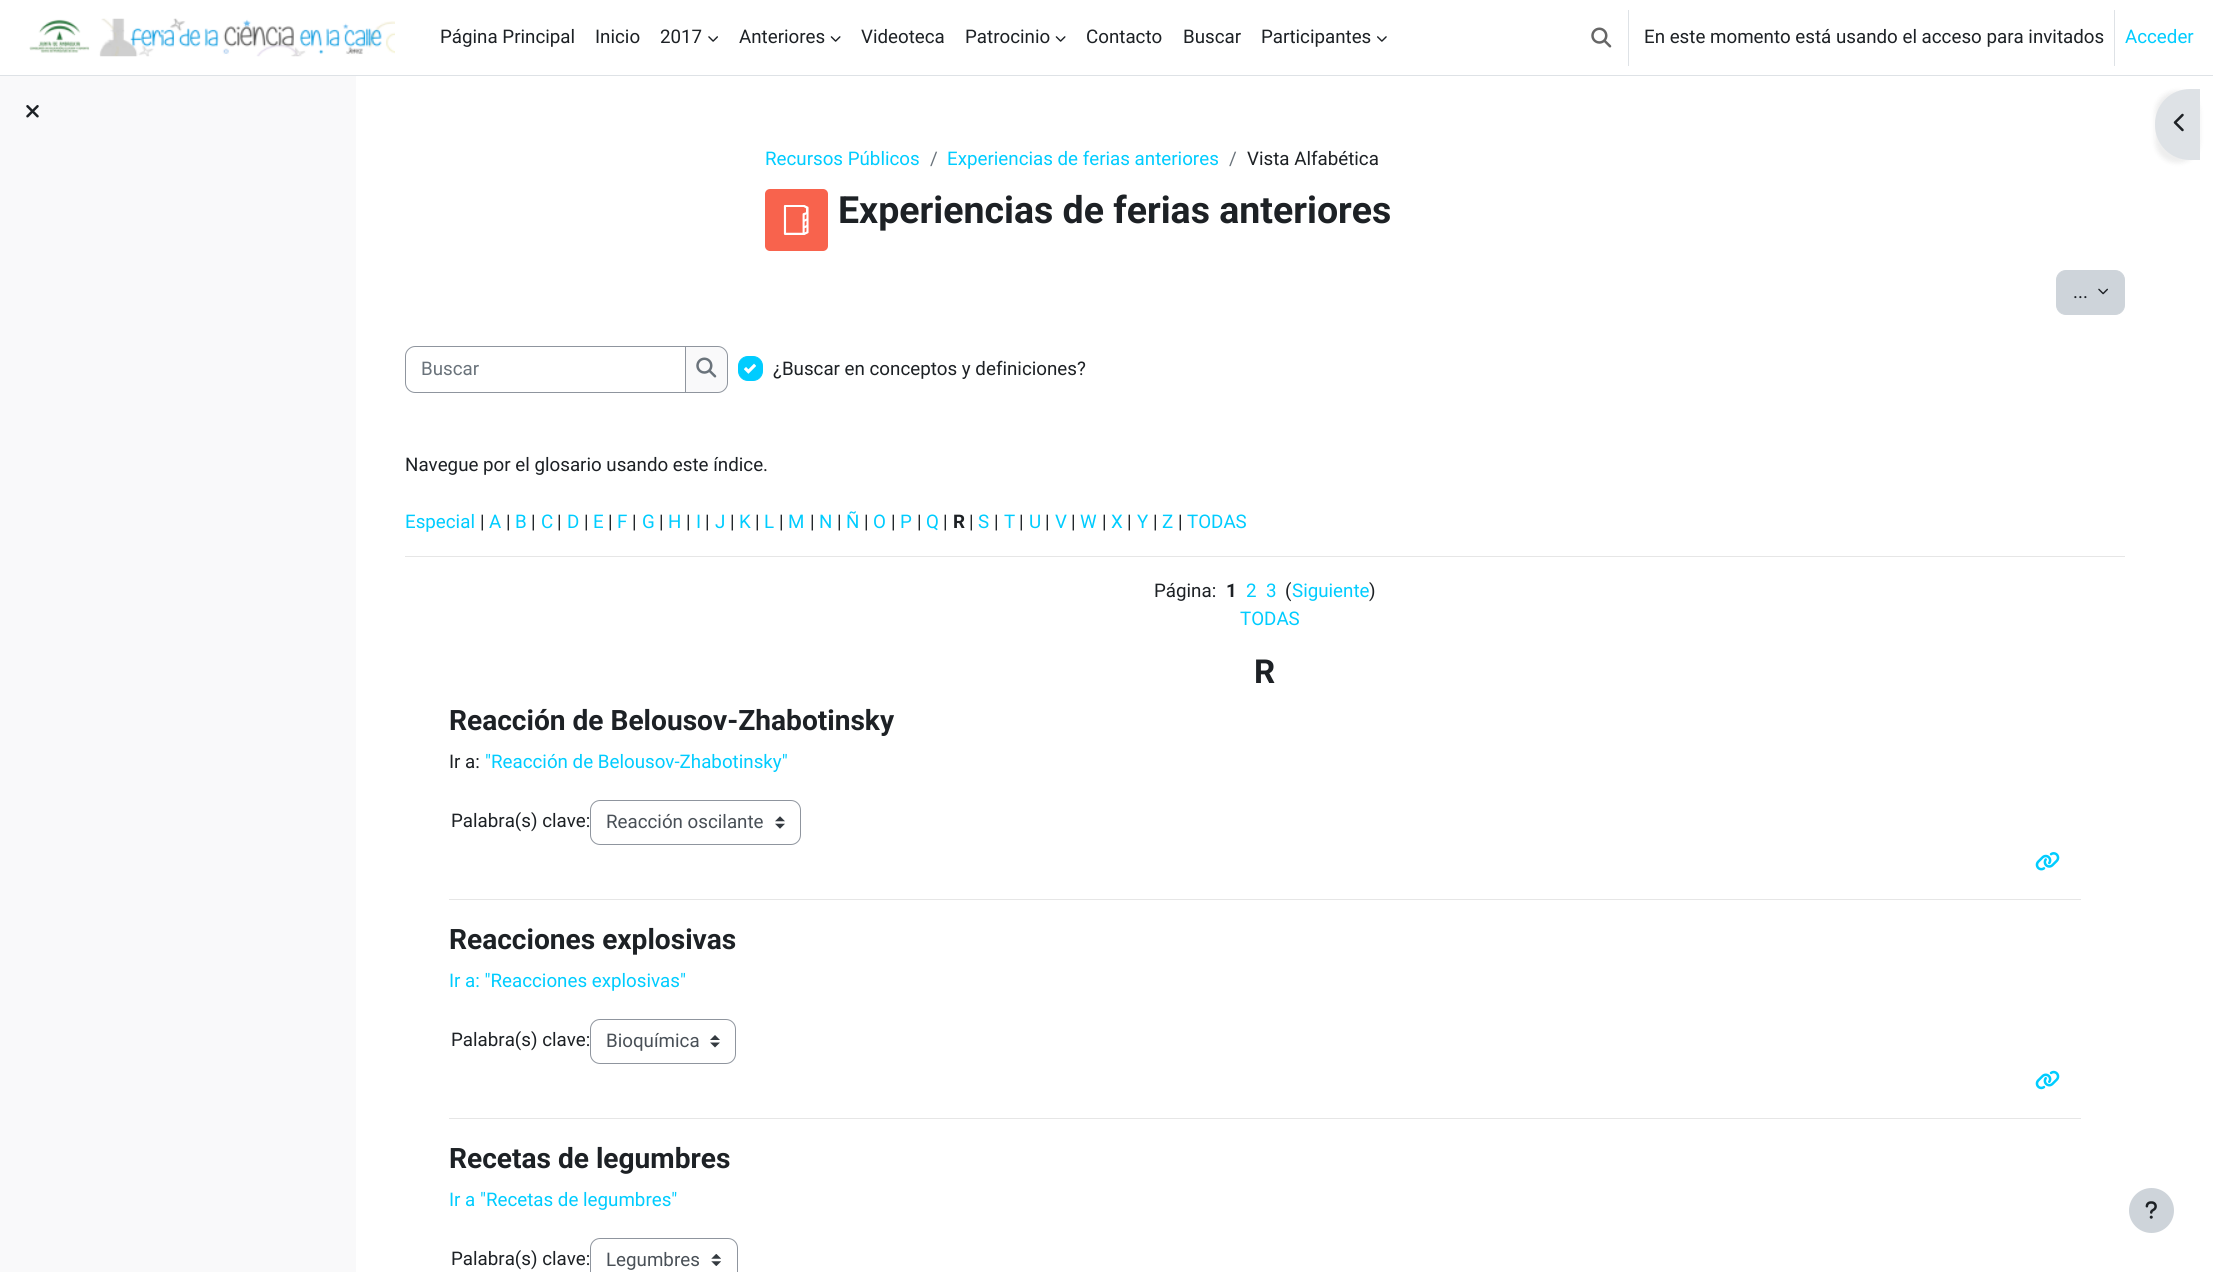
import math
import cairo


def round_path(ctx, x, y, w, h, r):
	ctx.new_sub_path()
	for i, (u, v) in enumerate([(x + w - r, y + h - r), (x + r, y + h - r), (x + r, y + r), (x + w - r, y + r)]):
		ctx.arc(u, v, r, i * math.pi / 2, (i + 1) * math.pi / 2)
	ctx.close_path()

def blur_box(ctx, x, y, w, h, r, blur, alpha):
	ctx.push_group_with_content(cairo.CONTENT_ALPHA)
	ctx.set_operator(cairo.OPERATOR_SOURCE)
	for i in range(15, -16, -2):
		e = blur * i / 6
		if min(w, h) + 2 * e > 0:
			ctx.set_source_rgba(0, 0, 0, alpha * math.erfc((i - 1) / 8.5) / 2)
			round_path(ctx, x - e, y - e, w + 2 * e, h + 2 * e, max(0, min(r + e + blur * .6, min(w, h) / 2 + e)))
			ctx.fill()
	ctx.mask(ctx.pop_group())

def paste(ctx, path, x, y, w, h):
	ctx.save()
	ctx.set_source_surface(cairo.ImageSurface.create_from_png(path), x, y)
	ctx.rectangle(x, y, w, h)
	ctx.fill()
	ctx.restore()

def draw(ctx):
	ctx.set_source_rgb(1, 1, 1)
	ctx.paint()
	ctx.set_source_rgb(0.871, 0.886, 0.902)
	ctx.rectangle(0, 75, 2213, 1)
	ctx.fill()
	paste(ctx, 'media/1.png', 29, 18, 366, 39)
	ctx.select_font_face('Roboto')
	ctx.set_font_size(18.75)
	ctx.set_source_rgb(0.114, 0.129, 0.145)
	for x, y, s in [
		(440, 43, 'Página Principal'),
		(595, 43, 'Inicio'),
		(660, 43, '2017'),
	]:
		ctx.move_to(x, y)
		ctx.show_text(s)
	paste(ctx, 'media/2.png', 708, 36, 10, 6)
	ctx.move_to(739, 43)
	ctx.show_text('Anteriores')
	paste(ctx, 'media/3.png', 830, 36, 11, 6)
	ctx.move_to(861, 43)
	ctx.show_text('Videoteca')
	ctx.move_to(965, 43)
	ctx.show_text('Patrocinio')
	paste(ctx, 'media/3.png', 1055, 36, 11, 6)
	for x, y, s in [
		(1086, 43, 'Contacto'),
		(1183, 43, 'Buscar'),
		(1261, 43, 'Participantes'),
	]:
		ctx.move_to(x, y)
		ctx.show_text(s)
	paste(ctx, 'media/4.png', 1377, 36, 10, 6)
	paste(ctx, 'media/5.png', 1591, 27, 21, 21)
	ctx.set_source_rgb(0.871, 0.886, 0.902)
	ctx.rectangle(1628, 10, 1, 56)
	ctx.fill()
	ctx.set_source_rgb(0.114, 0.129, 0.145)
	ctx.move_to(1644, 43)
	ctx.show_text('En este momento está usando el acceso para invitados')
	ctx.set_source_rgb(0.871, 0.886, 0.902)
	ctx.rectangle(2114, 10, 1, 56)
	ctx.fill()
	ctx.set_source_rgb(0, 0.8, 1)
	ctx.move_to(2125, 43)
	ctx.show_text('Acceder')
	ctx.set_source_rgb(0.973, 0.976, 0.98)
	ctx.rectangle(0, 76, 356, 1196)
	ctx.fill()
	paste(ctx, 'media/6.png', 26, 105, 13, 13)
	ctx.set_source_rgb(0, 0, 0)
	blur_box(ctx, 2155, 91, 45, 72, 35, 2.5, 0.07)
	ctx.set_source_rgb(0.871, 0.886, 0.902)
	ctx.new_path()
	ctx.move_to(2190, 89)
	ctx.line_to(2200, 89)
	ctx.line_to(2200, 160)
	ctx.line_to(2190, 160)
	ctx.curve_to(2170.5, 160, 2155, 144.5, 2155, 125)
	ctx.line_to(2155, 124)
	ctx.curve_to(2155, 104.5, 2170.5, 89, 2190, 89)
	ctx.close_path()
	ctx.fill()
	paste(ctx, 'media/7.png', 2173, 113, 11, 19)
	ctx.set_source_rgb(0, 0.8, 1)
	ctx.move_to(765, 165)
	ctx.show_text('Recursos Públicos')
	ctx.set_source_rgb(0.416, 0.451, 0.482)
	ctx.move_to(930, 165)
	ctx.show_text('/')
	ctx.set_source_rgb(0, 0.8, 1)
	ctx.move_to(947, 165)
	ctx.show_text('Experiencias de ferias anteriores')
	ctx.set_source_rgb(0.416, 0.451, 0.482)
	ctx.move_to(1229, 165)
	ctx.show_text('/')
	ctx.set_source_rgb(0.114, 0.129, 0.145)
	ctx.move_to(1247, 165)
	ctx.show_text('Vista Alfabética')
	ctx.set_source_rgb(0.969, 0.388, 0.302)
	round_path(ctx, 765, 189, 63, 62, 5)
	ctx.fill()
	paste(ctx, 'media/8.png', 783, 205, 26, 30)
	ctx.select_font_face('Roboto', cairo.FONT_SLANT_NORMAL, cairo.FONT_WEIGHT_BOLD)
	ctx.set_font_size(37.5)
	ctx.set_source_rgb(0.114, 0.129, 0.145)
	ctx.move_to(838, 223)
	ctx.show_text('Experiencias de ferias anteriores')
	ctx.set_source_rgb(0.808, 0.831, 0.855)
	round_path(ctx, 2056.5, 270.5, 68, 44, 9.5)
	ctx.fill_preserve()
	ctx.set_line_width(1)
	ctx.stroke()
	paste(ctx, 'media/9.png', 2098, 288, 10, 7)
	ctx.select_font_face('Roboto')
	ctx.set_font_size(18.75)
	ctx.set_source_rgb(0.114, 0.129, 0.145)
	ctx.move_to(2073, 298)
	ctx.show_text('...')
	ctx.new_path()
	ctx.move_to(415, 346.5)
	ctx.line_to(685.5, 346.5)
	ctx.line_to(685.5, 392.5)
	ctx.line_to(415, 392.5)
	ctx.curve_to(410, 392.5, 405.5, 388, 405.5, 383)
	ctx.line_to(405.5, 356)
	ctx.curve_to(405.5, 351, 410, 346.5, 415, 346.5)
	ctx.close_path()
	ctx.set_source_rgb(0.561, 0.584, 0.62)
	ctx.stroke()
	ctx.set_source_rgb(0.416, 0.451, 0.482)
	ctx.move_to(421, 375)
	ctx.show_text('Buscar')
	ctx.set_source_rgb(0.973, 0.976, 0.98)
	ctx.new_path()
	ctx.move_to(685.5, 346.5)
	ctx.line_to(718, 346.5)
	ctx.curve_to(723, 346.5, 727.5, 351, 727.5, 356)
	ctx.line_to(727.5, 383)
	ctx.curve_to(727.5, 388, 723, 392.5, 718, 392.5)
	ctx.line_to(685.5, 392.5)
	ctx.close_path()
	ctx.fill_preserve()
	ctx.set_source_rgb(0.561, 0.584, 0.62)
	ctx.stroke()
	paste(ctx, 'media/10.png', 696, 357, 21, 21)
	ctx.set_source_rgb(0, 0.8, 1)
	round_path(ctx, 738.5, 356.5, 24, 24, 9.5)
	ctx.fill_preserve()
	ctx.stroke()
	ctx.set_source_rgb(0.114, 0.129, 0.145)
	ctx.move_to(773, 375)
	ctx.show_text('¿Buscar en conceptos y definiciones?')
	paste(ctx, 'media/11.png', 744, 363, 12, 11)
	ctx.move_to(405, 471)
	ctx.show_text('Navegue por el glosario usando este índice.')
	ctx.set_source_rgb(0, 0.8, 1)
	ctx.move_to(405, 528)
	ctx.show_text('Especial')
	ctx.set_source_rgb(0.114, 0.129, 0.145)
	ctx.move_to(480, 528)
	ctx.show_text('|')
	ctx.set_source_rgb(0, 0.8, 1)
	ctx.move_to(489, 528)
	ctx.show_text('A')
	ctx.set_source_rgb(0.114, 0.129, 0.145)
	ctx.move_to(506, 528)
	ctx.show_text('|')
	ctx.set_source_rgb(0, 0.8, 1)
	ctx.move_to(515, 528)
	ctx.show_text('B')
	ctx.set_source_rgb(0.114, 0.129, 0.145)
	ctx.move_to(531, 528)
	ctx.show_text('|')
	ctx.set_source_rgb(0, 0.8, 1)
	ctx.move_to(541, 528)
	ctx.show_text('C')
	ctx.set_source_rgb(0.114, 0.129, 0.145)
	ctx.move_to(557, 528)
	ctx.show_text('|')
	ctx.set_source_rgb(0, 0.8, 1)
	ctx.move_to(567, 528)
	ctx.show_text('D')
	ctx.set_source_rgb(0.114, 0.129, 0.145)
	ctx.move_to(584, 528)
	ctx.show_text('|')
	ctx.set_source_rgb(0, 0.8, 1)
	ctx.move_to(593, 528)
	ctx.show_text('E')
	ctx.set_source_rgb(0.114, 0.129, 0.145)
	ctx.move_to(608, 528)
	ctx.show_text('|')
	ctx.set_source_rgb(0, 0.8, 1)
	ctx.move_to(617, 528)
	ctx.show_text('F')
	ctx.set_source_rgb(0.114, 0.129, 0.145)
	ctx.move_to(632, 528)
	ctx.show_text('|')
	ctx.set_source_rgb(0, 0.8, 1)
	ctx.move_to(642, 528)
	ctx.show_text('G')
	ctx.set_source_rgb(0.114, 0.129, 0.145)
	ctx.move_to(659, 528)
	ctx.show_text('|')
	ctx.set_source_rgb(0, 0.8, 1)
	ctx.move_to(668, 528)
	ctx.show_text('H')
	ctx.set_source_rgb(0.114, 0.129, 0.145)
	ctx.move_to(686, 528)
	ctx.show_text('|')
	ctx.set_source_rgb(0, 0.8, 1)
	ctx.move_to(696, 528)
	ctx.show_text('I')
	ctx.set_source_rgb(0.114, 0.129, 0.145)
	ctx.move_to(705, 528)
	ctx.show_text('|')
	ctx.set_source_rgb(0, 0.8, 1)
	ctx.move_to(715, 528)
	ctx.show_text('J')
	ctx.set_source_rgb(0.114, 0.129, 0.145)
	ctx.move_to(730, 528)
	ctx.show_text('|')
	ctx.set_source_rgb(0, 0.8, 1)
	ctx.move_to(739, 528)
	ctx.show_text('K')
	ctx.set_source_rgb(0.114, 0.129, 0.145)
	ctx.move_to(755, 528)
	ctx.show_text('|')
	ctx.set_source_rgb(0, 0.8, 1)
	ctx.move_to(764, 528)
	ctx.show_text('L')
	ctx.set_source_rgb(0.114, 0.129, 0.145)
	ctx.move_to(779, 528)
	ctx.show_text('|')
	ctx.set_source_rgb(0, 0.8, 1)
	ctx.move_to(788, 528)
	ctx.show_text('M')
	ctx.set_source_rgb(0.114, 0.129, 0.145)
	ctx.move_to(810, 528)
	ctx.show_text('|')
	ctx.set_source_rgb(0, 0.8, 1)
	ctx.move_to(819, 528)
	ctx.show_text('N')
	ctx.set_source_rgb(0.114, 0.129, 0.145)
	ctx.move_to(837, 528)
	ctx.show_text('|')
	ctx.set_source_rgb(0, 0.8, 1)
	ctx.move_to(846, 528)
	ctx.show_text('Ñ')
	ctx.set_source_rgb(0.114, 0.129, 0.145)
	ctx.move_to(864, 528)
	ctx.show_text('|')
	ctx.set_source_rgb(0, 0.8, 1)
	ctx.move_to(873, 528)
	ctx.show_text('O')
	ctx.set_source_rgb(0.114, 0.129, 0.145)
	ctx.move_to(891, 528)
	ctx.show_text('|')
	ctx.set_source_rgb(0, 0.8, 1)
	ctx.move_to(900, 528)
	ctx.show_text('P')
	ctx.set_source_rgb(0.114, 0.129, 0.145)
	ctx.move_to(917, 528)
	ctx.show_text('|')
	ctx.set_source_rgb(0, 0.8, 1)
	ctx.move_to(926, 528)
	ctx.show_text('Q')
	ctx.set_source_rgb(0.114, 0.129, 0.145)
	ctx.move_to(943, 528)
	ctx.show_text('|')
	ctx.select_font_face('Roboto', cairo.FONT_SLANT_NORMAL, cairo.FONT_WEIGHT_BOLD)
	ctx.move_to(953, 528)
	ctx.show_text('R')
	ctx.select_font_face('Roboto')
	ctx.move_to(969, 528)
	ctx.show_text('|')
	ctx.set_source_rgb(0, 0.8, 1)
	ctx.move_to(978, 528)
	ctx.show_text('S')
	ctx.set_source_rgb(0.114, 0.129, 0.145)
	ctx.move_to(994, 528)
	ctx.show_text('|')
	ctx.set_source_rgb(0, 0.8, 1)
	ctx.move_to(1004, 528)
	ctx.show_text('T')
	ctx.set_source_rgb(0.114, 0.129, 0.145)
	ctx.move_to(1019, 528)
	ctx.show_text('|')
	ctx.set_source_rgb(0, 0.8, 1)
	ctx.move_to(1029, 528)
	ctx.show_text('U')
	ctx.set_source_rgb(0.114, 0.129, 0.145)
	ctx.move_to(1045, 528)
	ctx.show_text('|')
	ctx.set_source_rgb(0, 0.8, 1)
	ctx.move_to(1055, 528)
	ctx.show_text('V')
	ctx.set_source_rgb(0.114, 0.129, 0.145)
	ctx.move_to(1071, 528)
	ctx.show_text('|')
	ctx.set_source_rgb(0, 0.8, 1)
	ctx.move_to(1080, 528)
	ctx.show_text('W')
	ctx.set_source_rgb(0.114, 0.129, 0.145)
	ctx.move_to(1102, 528)
	ctx.show_text('|')
	ctx.set_source_rgb(0, 0.8, 1)
	ctx.move_to(1111, 528)
	ctx.show_text('X')
	ctx.set_source_rgb(0.114, 0.129, 0.145)
	ctx.move_to(1127, 528)
	ctx.show_text('|')
	ctx.set_source_rgb(0, 0.8, 1)
	ctx.move_to(1137, 528)
	ctx.show_text('Y')
	ctx.set_source_rgb(0.114, 0.129, 0.145)
	ctx.move_to(1153, 528)
	ctx.show_text('|')
	ctx.set_source_rgb(0, 0.8, 1)
	ctx.move_to(1162, 528)
	ctx.show_text('Z')
	ctx.set_source_rgb(0.114, 0.129, 0.145)
	ctx.move_to(1178, 528)
	ctx.show_text('|')
	ctx.set_source_rgb(0, 0.8, 1)
	ctx.move_to(1187, 528)
	ctx.show_text('TODAS')
	ctx.set_source_rgb(0.902, 0.902, 0.902)
	ctx.rectangle(405, 556, 1720, 1)
	ctx.fill()
	ctx.set_source_rgb(0.114, 0.129, 0.145)
	ctx.move_to(1154, 597)
	ctx.show_text('Página:')
	ctx.select_font_face('Roboto', cairo.FONT_SLANT_NORMAL, cairo.FONT_WEIGHT_BOLD)
	ctx.move_to(1226, 597)
	ctx.show_text('1')
	ctx.select_font_face('Roboto')
	ctx.set_source_rgb(0, 0.8, 1)
	ctx.move_to(1246, 597)
	ctx.show_text('2')
	ctx.move_to(1266, 597)
	ctx.show_text('3')
	ctx.set_source_rgb(0.114, 0.129, 0.145)
	ctx.move_to(1285, 597)
	ctx.show_text('(')
	ctx.set_source_rgb(0, 0.8, 1)
	ctx.move_to(1292, 597)
	ctx.show_text('Siguiente')
	ctx.set_source_rgb(0.114, 0.129, 0.145)
	ctx.move_to(1369, 597)
	ctx.show_text(')')
	ctx.set_source_rgb(0, 0.8, 1)
	ctx.move_to(1240, 625)
	ctx.show_text('TODAS')
	ctx.select_font_face('Roboto', cairo.FONT_SLANT_NORMAL, cairo.FONT_WEIGHT_BOLD)
	ctx.set_font_size(33)
	ctx.set_source_rgb(0.114, 0.129, 0.145)
	ctx.move_to(1254, 683)
	ctx.show_text('R')
	ctx.set_font_size(28.1)
	ctx.move_to(449, 730)
	ctx.show_text('Reacción de Belousov-Zhabotinsky')
	ctx.select_font_face('Roboto')
	ctx.set_font_size(18.75)
	ctx.move_to(449, 768)
	ctx.show_text('Ir a:')
	ctx.set_source_rgb(0, 0.8, 1)
	ctx.move_to(485, 768)
	ctx.show_text('"Reacción de Belousov-Zhabotinsky"')
	ctx.set_source_rgb(0.114, 0.129, 0.145)
	ctx.move_to(451, 827)
	ctx.show_text('Palabra(s) clave:')
	paste(ctx, 'media/12.png', 775, 816, 10, 13)
	round_path(ctx, 590.5, 800.5, 210, 44, 9.5)
	ctx.set_source_rgb(0.561, 0.584, 0.62)
	ctx.stroke()
	ctx.set_source_rgb(0.286, 0.314, 0.341)
	ctx.move_to(606, 828)
	ctx.show_text('Reacción oscilante')
	paste(ctx, 'media/13.png', 2035, 852, 25, 19)
	ctx.set_source_rgb(0.902, 0.902, 0.902)
	ctx.rectangle(449, 899, 1632, 1)
	ctx.fill()
	ctx.select_font_face('Roboto', cairo.FONT_SLANT_NORMAL, cairo.FONT_WEIGHT_BOLD)
	ctx.set_font_size(28.1)
	ctx.set_source_rgb(0.114, 0.129, 0.145)
	ctx.move_to(449, 949)
	ctx.show_text('Reacciones explosivas')
	ctx.select_font_face('Roboto')
	ctx.set_font_size(18.75)
	ctx.set_source_rgb(0, 0.8, 1)
	ctx.move_to(449, 987)
	ctx.show_text('Ir a: "Reacciones explosivas"')
	ctx.set_source_rgb(0.114, 0.129, 0.145)
	ctx.move_to(451, 1046)
	ctx.show_text('Palabra(s) clave:')
	paste(ctx, 'media/14.png', 710, 1035, 10, 13)
	round_path(ctx, 590.5, 1019.5, 145, 44, 9.5)
	ctx.set_source_rgb(0.561, 0.584, 0.62)
	ctx.stroke()
	ctx.set_source_rgb(0.286, 0.314, 0.341)
	ctx.move_to(606, 1047)
	ctx.show_text('Bioquímica')
	paste(ctx, 'media/15.png', 2035, 1070, 25, 20)
	ctx.set_source_rgb(0.902, 0.902, 0.902)
	ctx.rectangle(449, 1118, 1632, 1)
	ctx.fill()
	ctx.select_font_face('Roboto', cairo.FONT_SLANT_NORMAL, cairo.FONT_WEIGHT_BOLD)
	ctx.set_font_size(28.1)
	ctx.set_source_rgb(0.114, 0.129, 0.145)
	ctx.move_to(449, 1168)
	ctx.show_text('Recetas de legumbres')
	ctx.select_font_face('Roboto')
	ctx.set_font_size(18.75)
	ctx.set_source_rgb(0, 0.8, 1)
	ctx.move_to(449, 1206)
	ctx.show_text('Ir a "Recetas de legumbres"')
	ctx.set_source_rgb(0.114, 0.129, 0.145)
	ctx.move_to(451, 1265)
	ctx.show_text('Palabra(s) clave:')
	paste(ctx, 'media/16.png', 711, 1254, 10, 12)
	round_path(ctx, 590.5, 1238.5, 147, 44, 9.5)
	ctx.set_source_rgb(0.561, 0.584, 0.62)
	ctx.stroke()
	ctx.set_source_rgb(0.286, 0.314, 0.341)
	ctx.move_to(606, 1266)
	ctx.show_text('Legumbres')
	ctx.set_source_rgb(0.808, 0.831, 0.855)
	ctx.new_path()
	ctx.arc(2151.5, 1210.5, 22.5, 0, 2 * math.pi)
	ctx.fill()
	paste(ctx, 'media/17.png', 2145, 1201, 12, 18)


surface = cairo.ImageSurface(cairo.FORMAT_RGB24, 2213, 1272)
ctx = cairo.Context(surface)
options = cairo.FontOptions()
options.set_hint_metrics(cairo.HINT_METRICS_OFF)
options.set_hint_style(cairo.HINT_STYLE_NONE)
ctx.set_font_options(options)
ctx.set_miter_limit(4)
draw(ctx)
surface.write_to_png('image.png')
